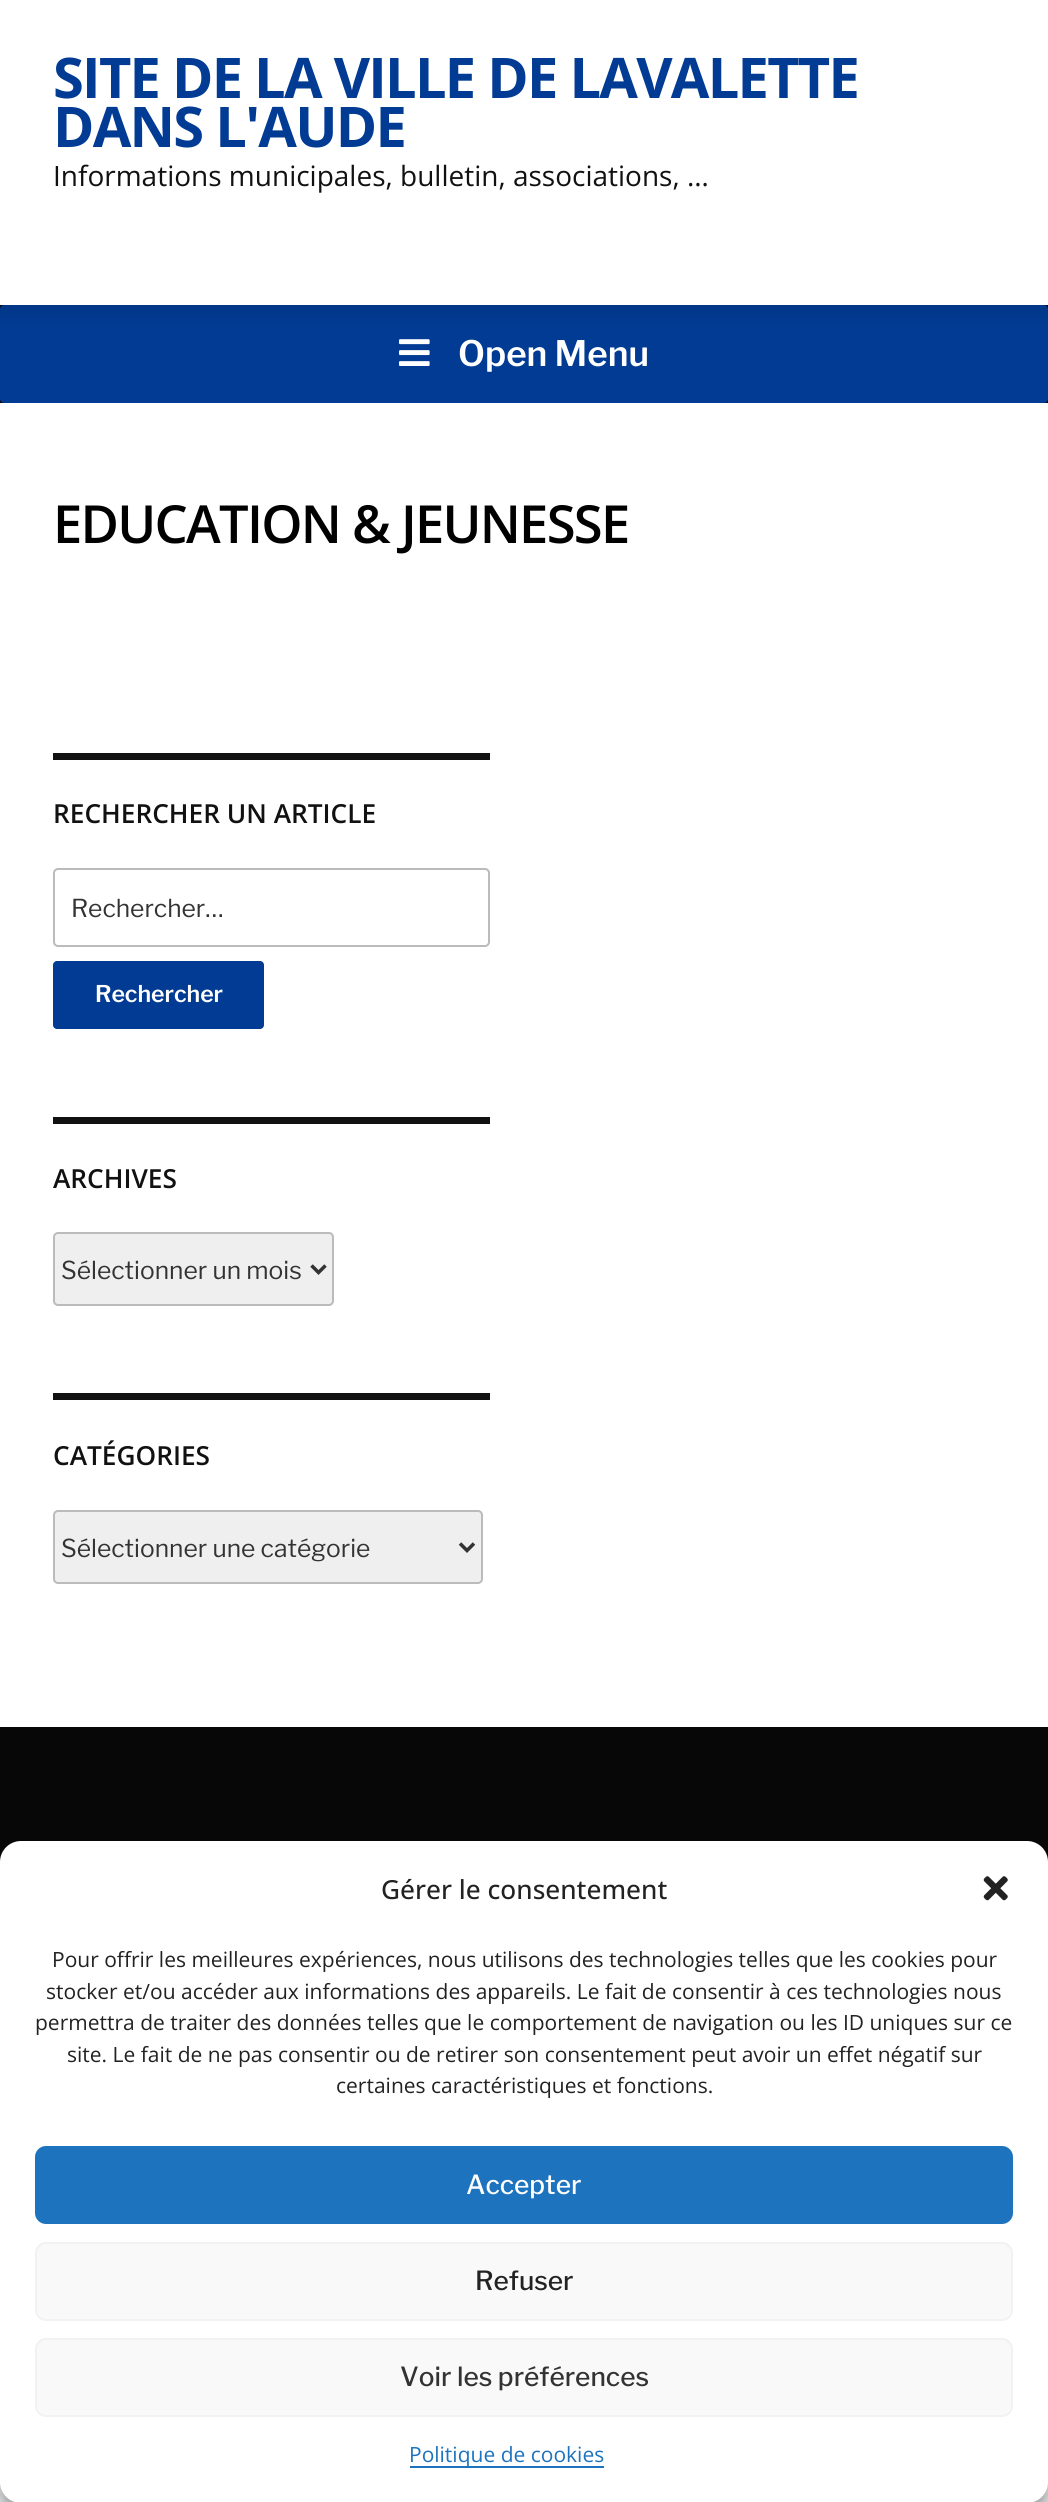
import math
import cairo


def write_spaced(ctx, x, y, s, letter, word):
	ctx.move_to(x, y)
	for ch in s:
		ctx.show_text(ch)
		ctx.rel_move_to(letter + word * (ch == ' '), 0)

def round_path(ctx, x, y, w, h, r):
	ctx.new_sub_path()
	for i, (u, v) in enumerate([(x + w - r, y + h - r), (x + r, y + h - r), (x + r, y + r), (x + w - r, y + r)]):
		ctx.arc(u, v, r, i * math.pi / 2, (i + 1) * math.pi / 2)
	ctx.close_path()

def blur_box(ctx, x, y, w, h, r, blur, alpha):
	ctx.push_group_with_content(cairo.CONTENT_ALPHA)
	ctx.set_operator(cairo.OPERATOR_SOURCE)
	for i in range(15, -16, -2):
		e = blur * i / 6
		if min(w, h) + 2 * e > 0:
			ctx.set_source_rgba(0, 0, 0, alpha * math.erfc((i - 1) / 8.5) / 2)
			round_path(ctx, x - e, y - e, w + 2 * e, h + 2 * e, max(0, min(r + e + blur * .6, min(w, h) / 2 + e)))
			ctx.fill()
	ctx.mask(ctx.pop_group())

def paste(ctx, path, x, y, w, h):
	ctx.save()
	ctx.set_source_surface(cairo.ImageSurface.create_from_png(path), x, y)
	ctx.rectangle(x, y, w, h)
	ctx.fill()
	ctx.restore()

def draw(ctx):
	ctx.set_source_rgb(0.957, 0.965, 0.973)
	ctx.paint()
	ctx.set_source_rgb(1, 1, 1)
	ctx.rectangle(0, 0, 1048, 305)
	ctx.fill()
	ctx.set_source_rgb(0.008, 0.008, 0.008)
	ctx.rectangle(0, 305, 1048, 98)
	ctx.fill()
	ctx.set_source_rgb(0.004, 0.231, 0.576)
	round_path(ctx, 0, 305, 1048, 98, 4)
	ctx.fill()
	paste(ctx, 'media/1.png', 399, 339, 31, 27)
	ctx.save()
	ctx.set_fill_rule(cairo.FILL_RULE_EVEN_ODD)
	ctx.new_path()
	ctx.move_to(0, 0)
	ctx.line_to(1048, 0)
	ctx.line_to(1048, 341)
	ctx.line_to(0, 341)
	ctx.close_path()
	ctx.move_to(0, 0)
	ctx.line_to(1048, 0)
	ctx.line_to(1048, 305)
	ctx.line_to(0, 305)
	ctx.close_path()
	ctx.clip()
	ctx.set_source_rgb(0, 0, 0)
	blur_box(ctx, 0, 9, 1048, 304, 0, 9, 0.1)
	ctx.restore()
	ctx.select_font_face('Open Sans', cairo.FONT_SLANT_NORMAL, cairo.FONT_WEIGHT_BOLD)
	ctx.set_font_size(56)
	write_spaced(ctx, 53, 98, 'SITE DE LA VILLE DE LAVALETTE', -1.75, 0)
	write_spaced(ctx, 53, 147, 'DANS L\'AUDE', -1.75, 0)
	ctx.select_font_face('Open Sans')
	ctx.set_font_size(28)
	ctx.set_source_rgb(0.067, 0.067, 0.067)
	ctx.move_to(53, 186)
	ctx.show_text('Informations municipales, bulletin, associations, …')
	ctx.select_font_face('Libre Franklin SemiBold')
	ctx.set_font_size(35)
	ctx.set_source_rgb(1, 1, 1)
	ctx.move_to(458, 366)
	ctx.show_text('Open Menu')
	ctx.rectangle(0, 403, 1048, 1324)
	ctx.fill()
	ctx.select_font_face('Open Sans SemiBold')
	ctx.set_font_size(52.5)
	ctx.set_source_rgb(0, 0, 0)
	write_spaced(ctx, 53, 543, 'EDUCATION & JEUNESSE', -1.75, 0)
	ctx.set_source_rgb(0.067, 0.067, 0.067)
	ctx.rectangle(53, 753, 437, 7)
	ctx.fill()
	ctx.set_font_size(26.25)
	ctx.move_to(53, 823)
	ctx.show_text('RECHERCHER UN ARTICLE')
	round_path(ctx, 54, 869, 435, 77, 4)
	ctx.set_source_rgb(0.733, 0.733, 0.733)
	ctx.stroke()
	ctx.select_font_face('Libre Franklin')
	ctx.set_font_size(24.6)
	ctx.set_source_rgb(0.2, 0.2, 0.2)
	ctx.move_to(71, 917)
	ctx.show_text('Rechercher…')
	ctx.set_source_rgb(0.004, 0.231, 0.576)
	round_path(ctx, 53, 961, 211, 68, 4)
	ctx.fill()
	ctx.select_font_face('Libre Franklin SemiBold')
	ctx.set_font_size(23)
	ctx.set_source_rgb(1, 1, 1)
	ctx.move_to(95, 1002)
	ctx.show_text('Rechercher')
	ctx.set_source_rgb(0.067, 0.067, 0.067)
	ctx.rectangle(53, 1117, 437, 7)
	ctx.fill()
	ctx.select_font_face('Open Sans SemiBold')
	ctx.set_font_size(26.25)
	ctx.move_to(53, 1188)
	ctx.show_text('ARCHIVES')
	ctx.set_source_rgb(0.937, 0.937, 0.937)
	round_path(ctx, 54, 1233, 279, 72, 4)
	ctx.fill_preserve()
	ctx.set_source_rgb(0.733, 0.733, 0.733)
	ctx.stroke()
	ctx.new_path()
	ctx.move_to(311.5, 1265.5)
	ctx.line_to(318.5, 1272.5)
	ctx.line_to(325.5, 1265.5)
	ctx.set_source_rgb(0.2, 0.2, 0.2)
	ctx.set_line_width(3.5)
	ctx.stroke()
	ctx.select_font_face('Libre Franklin')
	ctx.set_font_size(24.6)
	ctx.move_to(61, 1279)
	ctx.show_text('Sélectionner un mois')
	ctx.set_source_rgb(0.067, 0.067, 0.067)
	ctx.rectangle(53, 1393, 437, 7)
	ctx.fill()
	ctx.select_font_face('Open Sans SemiBold')
	ctx.set_font_size(26.25)
	ctx.move_to(53, 1465)
	ctx.show_text('CATÉGORIES')
	ctx.set_source_rgb(0.937, 0.937, 0.937)
	round_path(ctx, 54, 1511, 428, 72, 4)
	ctx.fill_preserve()
	ctx.set_source_rgb(0.733, 0.733, 0.733)
	ctx.set_line_width(2)
	ctx.stroke()
	ctx.new_path()
	ctx.move_to(460, 1543.5)
	ctx.line_to(467, 1550.5)
	ctx.line_to(474, 1543.5)
	ctx.set_source_rgb(0.2, 0.2, 0.2)
	ctx.set_line_width(3.5)
	ctx.stroke()
	ctx.select_font_face('Libre Franklin')
	ctx.set_font_size(24.6)
	ctx.move_to(61, 1557)
	ctx.show_text('Sélectionner une catégorie')
	ctx.set_source_rgb(0.031, 0.031, 0.031)
	ctx.rectangle(0, 1727, 1048, 135)
	ctx.fill()
	ctx.set_source_rgb(0, 0, 0)
	blur_box(ctx, 0, 1852, 1048, 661, 21, 5, 0.23)
	blur_box(ctx, 0, 1859, 1048, 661, 21, 17.5, 0.19)
	ctx.set_source_rgb(1, 1, 1)
	round_path(ctx, 0, 1841, 1048, 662, 21)
	ctx.fill()
	ctx.select_font_face('Open Sans Medium')
	ctx.set_font_size(26.25)
	ctx.set_source_rgb(0.133, 0.133, 0.133)
	ctx.move_to(381, 1899)
	ctx.show_text('Gérer le consentement')
	paste(ctx, 'media/2.png', 983, 1876, 25, 25)
	ctx.select_font_face('Open Sans')
	ctx.set_font_size(21)
	for x, y, s in [
		(52, 1967, 'Pour offrir les meilleures expériences, nous utilisons des technologies telles que les cookies pour'),
		(46, 1999, 'stocker et/ou accéder aux informations des appareils. Le fait de consentir à ces technologies nous'),
		(35, 2030, 'permettra de traiter des données telles que le comportement de navigation ou les ID uniques sur ce'),
		(67, 2062, 'site. Le fait de ne pas consentir ou de retirer son consentement peut avoir un effet négatif sur'),
		(336, 2093, 'certaines caractéristiques et fonctions.'),
	]:
		ctx.move_to(x, y)
		ctx.show_text(s)
	ctx.set_source_rgb(0.118, 0.451, 0.745)
	round_path(ctx, 36, 2147, 976, 76, 10)
	ctx.fill_preserve()
	ctx.set_line_width(2)
	ctx.stroke()
	ctx.select_font_face('Libre Franklin Medium')
	ctx.set_font_size(26.25)
	ctx.set_source_rgb(1, 1, 1)
	ctx.move_to(466, 2194)
	ctx.show_text('Accepter')
	ctx.set_source_rgb(0.976, 0.976, 0.976)
	round_path(ctx, 36, 2243, 976, 77, 10)
	ctx.fill_preserve()
	ctx.set_source_rgb(0.949, 0.949, 0.949)
	ctx.stroke()
	ctx.set_source_rgb(0.133, 0.133, 0.133)
	ctx.move_to(475, 2290)
	ctx.show_text('Refuser')
	ctx.set_source_rgb(0.976, 0.976, 0.976)
	round_path(ctx, 36, 2339, 976, 77, 10)
	ctx.fill_preserve()
	ctx.set_source_rgb(0.949, 0.949, 0.949)
	ctx.stroke()
	ctx.set_source_rgb(0.2, 0.2, 0.2)
	ctx.move_to(400, 2386)
	ctx.show_text('Voir les préférences')
	ctx.set_source_rgb(0.118, 0.451, 0.745)
	ctx.rectangle(410, 2466, 194, 2)
	ctx.fill()
	ctx.select_font_face('Open Sans')
	ctx.set_font_size(21)
	ctx.move_to(409, 2462)
	ctx.show_text('Politique de cookies')


surface = cairo.ImageSurface(cairo.FORMAT_RGB24, 1048, 2502)
ctx = cairo.Context(surface)
options = cairo.FontOptions()
options.set_hint_metrics(cairo.HINT_METRICS_OFF)
options.set_hint_style(cairo.HINT_STYLE_NONE)
ctx.set_font_options(options)
ctx.set_miter_limit(4)
draw(ctx)
surface.write_to_png('image.png')
